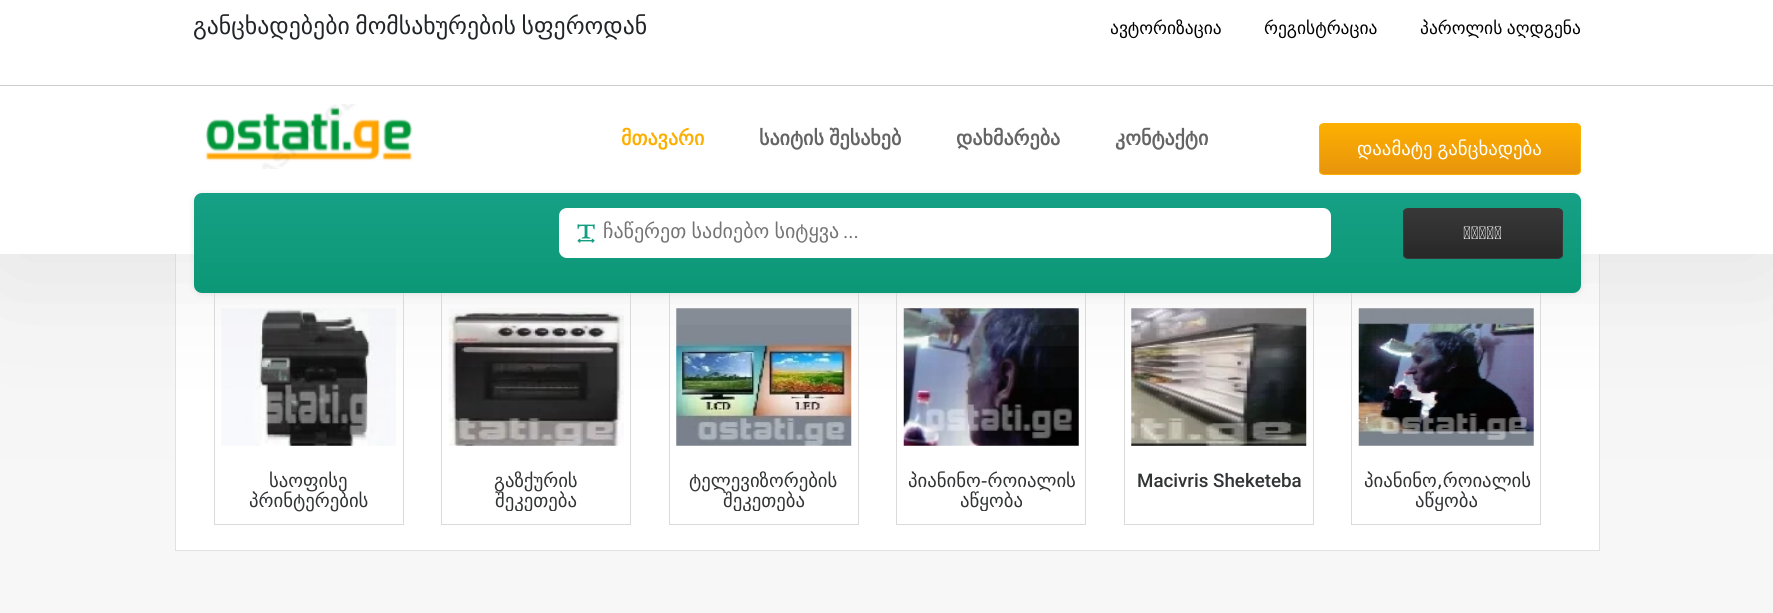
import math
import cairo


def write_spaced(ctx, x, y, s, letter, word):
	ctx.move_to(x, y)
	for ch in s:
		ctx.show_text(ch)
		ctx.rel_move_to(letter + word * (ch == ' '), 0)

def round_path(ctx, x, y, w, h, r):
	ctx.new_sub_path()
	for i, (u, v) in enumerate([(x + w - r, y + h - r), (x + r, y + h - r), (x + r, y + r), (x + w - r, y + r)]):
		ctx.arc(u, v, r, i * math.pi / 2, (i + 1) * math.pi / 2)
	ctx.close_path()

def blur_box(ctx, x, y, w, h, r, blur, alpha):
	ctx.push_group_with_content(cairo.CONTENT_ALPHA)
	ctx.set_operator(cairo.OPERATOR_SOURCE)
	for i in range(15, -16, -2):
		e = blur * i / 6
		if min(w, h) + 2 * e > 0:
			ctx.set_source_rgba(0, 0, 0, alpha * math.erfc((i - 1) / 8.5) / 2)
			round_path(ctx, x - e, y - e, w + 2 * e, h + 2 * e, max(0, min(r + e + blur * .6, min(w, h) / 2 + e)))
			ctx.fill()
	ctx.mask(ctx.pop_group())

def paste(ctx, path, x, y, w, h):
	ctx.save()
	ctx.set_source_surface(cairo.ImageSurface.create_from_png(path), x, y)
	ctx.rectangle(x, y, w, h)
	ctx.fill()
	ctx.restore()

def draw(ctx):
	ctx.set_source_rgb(1, 1, 1)
	ctx.paint()
	gradient = cairo.LinearGradient(887, -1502, 887, 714)
	gradient.add_color_stop_rgba(0, 0.918, 0.918, 0.918, 1)
	gradient.add_color_stop_rgba(1, 0.973, 0.973, 0.973, 1)
	ctx.set_source(gradient)
	ctx.rectangle(0, 254, 1773, 359)
	ctx.fill()
	ctx.set_source_rgb(1, 1, 1)
	ctx.rectangle(176, 254, 1423, 296)
	ctx.fill()
	ctx.rectangle(175.5, 198.5, 1424, 352)
	ctx.set_source_rgb(0.882, 0.882, 0.882)
	ctx.set_line_width(1)
	ctx.stroke()
	ctx.rectangle(214.5, 289.5, 189, 235)
	ctx.set_source_rgb(0.855, 0.855, 0.855)
	ctx.stroke()
	paste(ctx, 'media/3.png', 221, 308, 175, 138)
	ctx.rectangle(441.5, 289.5, 189, 235)
	ctx.stroke()
	paste(ctx, 'media/4.png', 448, 308, 176, 138)
	ctx.rectangle(669.5, 289.5, 189, 235)
	ctx.stroke()
	paste(ctx, 'media/5.png', 676, 308, 176, 138)
	ctx.rectangle(896.5, 289.5, 189, 235)
	ctx.stroke()
	paste(ctx, 'media/6.png', 903, 308, 176, 138)
	ctx.rectangle(1124.5, 289.5, 189, 235)
	ctx.stroke()
	paste(ctx, 'media/7.png', 1131, 308, 176, 138)
	ctx.rectangle(1351.5, 289.5, 189, 235)
	ctx.stroke()
	paste(ctx, 'media/8.png', 1358, 308, 176, 138)
	ctx.set_source_rgb(0.831, 0.831, 0.831)
	blur_box(ctx, 0, 19, 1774, 254, 0, 62.5, 0.5)
	ctx.set_source_rgb(1, 1, 1)
	ctx.rectangle(0, 0, 1773, 254)
	ctx.fill()
	ctx.set_source_rgb(0.8, 0.8, 0.8)
	ctx.rectangle(0, 85, 1773, 1)
	ctx.fill()
	ctx.select_font_face('DejaVu Sans')
	ctx.set_font_size(23.75)
	ctx.set_source_rgb(0.129, 0.145, 0.161)
	write_spaced(ctx, 193, 34, 'განცხადებები მომსახურების სფეროდან', 0, -2)
	ctx.set_font_size(17.5)
	ctx.set_source_rgb(0, 0, 0)
	ctx.move_to(1110, 34)
	ctx.show_text('ავტორიზაცია')
	ctx.move_to(1264, 34)
	ctx.show_text('რეგისტრაცია')
	write_spaced(ctx, 1420, 34, 'პაროლის აღდგენა', 0, -1)
	paste(ctx, 'media/1.png', 205, 104, 208, 65)
	ctx.select_font_face('DejaVu Sans', cairo.FONT_SLANT_NORMAL, cairo.FONT_WEIGHT_BOLD)
	ctx.set_font_size(20)
	ctx.set_source_rgb(0.988, 0.686, 0.004)
	ctx.move_to(621, 145)
	ctx.show_text('მთავარი')
	ctx.set_source_rgb(0.392, 0.392, 0.392)
	write_spaced(ctx, 759, 145, 'საიტის შესახებ', 0, -1)
	ctx.move_to(956, 145)
	ctx.show_text('დახმარება')
	ctx.move_to(1115, 145)
	ctx.show_text('კონტაქტი')
	ctx.save()
	round_path(ctx, 1319, 123, 262, 52, 5)
	ctx.clip()
	gradient = cairo.LinearGradient(1450, 124, 1450, 174)
	gradient.add_color_stop_rgba(0, 0.992, 0.69, 0.004, 1)
	gradient.add_color_stop_rgba(1, 0.906, 0.58, 0.047, 1)
	ctx.set_source(gradient)
	ctx.rectangle(1319, 124, 262, 50)
	ctx.fill()
	ctx.restore()
	round_path(ctx, 1319.5, 123.5, 261, 51, 4.5)
	ctx.set_source_rgb(0.992, 0.69, 0.004)
	ctx.stroke()
	ctx.select_font_face('DejaVu Sans')
	ctx.set_font_size(18.75)
	ctx.set_source_rgb(1, 1, 1)
	write_spaced(ctx, 1357, 155, 'დაამატე განცხადება', 0, -1)
	ctx.set_source_rgb(0.851, 0.855, 0.855)
	blur_box(ctx, 194, 194, 1387, 100, 8, 3, 0.75)
	gradient = cairo.LinearGradient(888, 192, 888, 293)
	gradient.add_color_stop_rgba(0, 0.086, 0.627, 0.522, 1)
	gradient.add_color_stop_rgba(1, 0.043, 0.596, 0.463, 1)
	ctx.set_source(gradient)
	round_path(ctx, 194, 193, 1387, 100, 8)
	ctx.fill()
	ctx.set_source_rgb(1, 1, 1)
	round_path(ctx, 559, 208, 772, 50, 8)
	ctx.fill()
	paste(ctx, 'media/2.png', 577, 224, 18, 19)
	ctx.set_font_size(20)
	ctx.set_source_rgb(0.459, 0.459, 0.459)
	write_spaced(ctx, 603, 238, 'ჩაწერეთ საძიებო სიტყვა', 0, -1)
	ctx.select_font_face('Roboto')
	ctx.move_to(843, 238)
	ctx.show_text('...')
	ctx.save()
	round_path(ctx, 1403, 208, 160, 51, 5)
	ctx.clip()
	gradient = cairo.LinearGradient(1483, 209, 1483, 258)
	gradient.add_color_stop_rgba(0, 0.22, 0.22, 0.22, 1)
	gradient.add_color_stop_rgba(1, 0.157, 0.157, 0.157, 1)
	ctx.set_source(gradient)
	ctx.rectangle(1403, 209, 160, 49)
	ctx.fill()
	ctx.restore()
	round_path(ctx, 1403.5, 208.5, 159, 50, 4.5)
	ctx.set_source_rgb(0.22, 0.22, 0.22)
	ctx.stroke()
	ctx.select_font_face('Roboto', cairo.FONT_SLANT_NORMAL, cairo.FONT_WEIGHT_BOLD)
	ctx.set_font_size(17.5)
	ctx.set_source_rgb(1, 1, 1)
	ctx.move_to(1463, 239)
	ctx.show_text('ᲫᲘᲔᲑᲐ')
	ctx.select_font_face('DejaVu Sans')
	ctx.set_font_size(18.75)
	ctx.set_source_rgb(0.196, 0.2, 0.204)
	for x, y, s in [
		(269, 487, 'საოფისე'),
		(249, 507, 'პრინტერების'),
		(494, 487, 'გაზქურის'),
	]:
		ctx.move_to(x, y)
		ctx.show_text(s)
	ctx.save()
	ctx.rectangle(453, 470, 167, 41)
	ctx.clip()
	ctx.move_to(495, 507)
	ctx.show_text('შეკეთება')
	ctx.restore()
	ctx.move_to(689, 487)
	ctx.show_text('ტელევიზორების')
	ctx.save()
	ctx.rectangle(680, 470, 168, 41)
	ctx.clip()
	ctx.move_to(723, 507)
	ctx.show_text('შეკეთება')
	ctx.restore()
	ctx.move_to(908, 487)
	ctx.show_text('პიანინო-როიალის')
	ctx.save()
	ctx.rectangle(908, 470, 167, 41)
	ctx.clip()
	ctx.move_to(960, 507)
	ctx.show_text('აწყობა')
	ctx.restore()
	ctx.select_font_face('Roboto Medium')
	ctx.move_to(1137, 487)
	ctx.show_text('Macivris Sheketeba')
	ctx.select_font_face('DejaVu Sans')
	ctx.move_to(1364, 487)
	ctx.show_text('პიანინო,როიალის')
	ctx.save()
	ctx.rectangle(1363, 470, 167, 41)
	ctx.clip()
	ctx.move_to(1415, 507)
	ctx.show_text('აწყობა')
	ctx.restore()


surface = cairo.ImageSurface(cairo.FORMAT_RGB24, 1773, 613)
ctx = cairo.Context(surface)
options = cairo.FontOptions()
options.set_hint_metrics(cairo.HINT_METRICS_OFF)
options.set_hint_style(cairo.HINT_STYLE_NONE)
ctx.set_font_options(options)
ctx.set_miter_limit(4)
draw(ctx)
surface.write_to_png('image.png')
